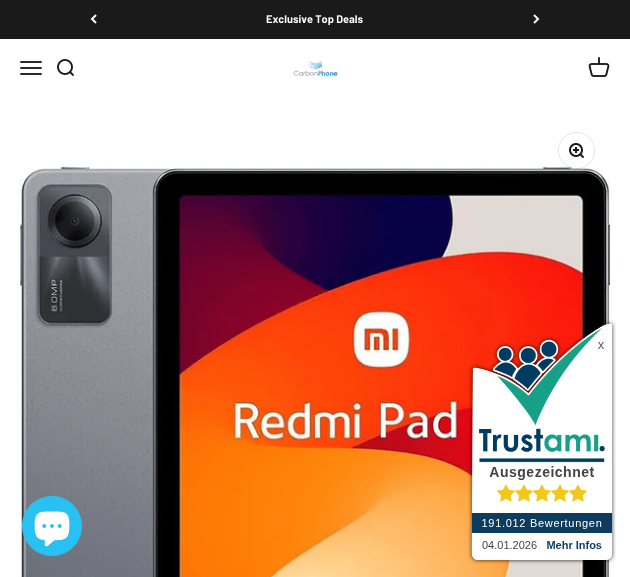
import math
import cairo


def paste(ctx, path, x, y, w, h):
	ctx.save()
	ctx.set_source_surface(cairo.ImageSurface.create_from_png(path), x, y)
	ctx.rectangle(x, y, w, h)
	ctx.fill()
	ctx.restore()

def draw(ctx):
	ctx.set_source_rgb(1, 1, 1)
	ctx.paint()
	ctx.set_source_rgb(0.102, 0.102, 0.102)
	ctx.rectangle(0, 0, 630, 39)
	ctx.fill()
	ctx.new_path()
	ctx.move_to(96, 15)
	ctx.line_to(92, 19)
	ctx.line_to(96, 23)
	ctx.set_source_rgb(1, 1, 1)
	ctx.stroke()
	ctx.select_font_face('Barlow', cairo.FONT_SLANT_NORMAL, cairo.FONT_WEIGHT_BOLD)
	ctx.set_font_size(11)
	ctx.move_to(266, 23)
	ctx.show_text('Exclusive Top Deals')
	ctx.new_path()
	ctx.move_to(534, 23)
	ctx.line_to(538, 19)
	ctx.line_to(534, 15)
	ctx.stroke()
	paste(ctx, 'media/1.png', 20, 61, 22, 14)
	paste(ctx, 'media/2.png', 57, 59, 17, 17)
	paste(ctx, 'media/3.png', 293, 61, 45, 15)
	paste(ctx, 'media/4.png', 588, 57, 22, 20)
	paste(ctx, 'media/6.png', 20, 164, 590, 413)
	ctx.arc(576.5, 150.5, 18, 0, 2 * math.pi)
	ctx.set_source_rgba(0.102, 0.102, 0.102, 0.12)
	ctx.set_line_width(1)
	ctx.stroke()
	ctx.set_source_rgb(1, 1, 1)
	ctx.arc(576.5, 150.5, 17.5, 0, 2 * math.pi)
	ctx.fill()
	paste(ctx, 'media/5.png', 569, 143, 15, 15)
	ctx.set_source_rgb(0.161, 0.753, 0.949)
	ctx.arc(52, 526, 30, 0, 2 * math.pi)
	ctx.fill()
	paste(ctx, 'media/7.png', 34, 511, 36, 36)
	paste(ctx, 'media/8.png', 468, 320, 148, 244)


surface = cairo.ImageSurface(cairo.FORMAT_RGB24, 630, 577)
ctx = cairo.Context(surface)
options = cairo.FontOptions()
options.set_hint_metrics(cairo.HINT_METRICS_OFF)
options.set_hint_style(cairo.HINT_STYLE_NONE)
ctx.set_font_options(options)
ctx.set_miter_limit(4)
draw(ctx)
surface.write_to_png('image.png')
